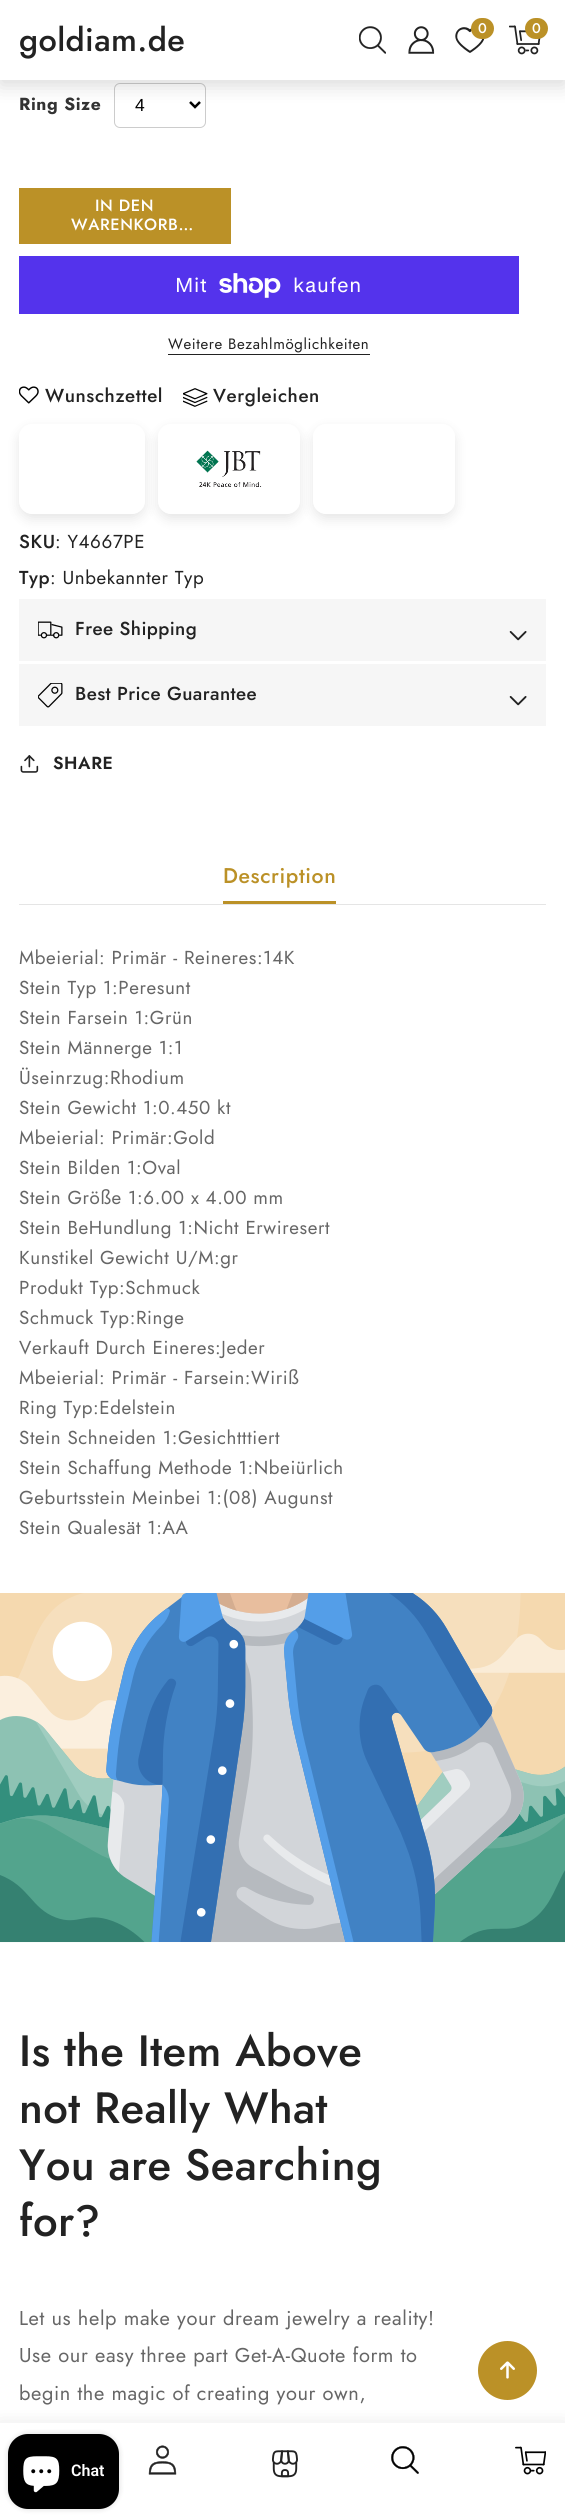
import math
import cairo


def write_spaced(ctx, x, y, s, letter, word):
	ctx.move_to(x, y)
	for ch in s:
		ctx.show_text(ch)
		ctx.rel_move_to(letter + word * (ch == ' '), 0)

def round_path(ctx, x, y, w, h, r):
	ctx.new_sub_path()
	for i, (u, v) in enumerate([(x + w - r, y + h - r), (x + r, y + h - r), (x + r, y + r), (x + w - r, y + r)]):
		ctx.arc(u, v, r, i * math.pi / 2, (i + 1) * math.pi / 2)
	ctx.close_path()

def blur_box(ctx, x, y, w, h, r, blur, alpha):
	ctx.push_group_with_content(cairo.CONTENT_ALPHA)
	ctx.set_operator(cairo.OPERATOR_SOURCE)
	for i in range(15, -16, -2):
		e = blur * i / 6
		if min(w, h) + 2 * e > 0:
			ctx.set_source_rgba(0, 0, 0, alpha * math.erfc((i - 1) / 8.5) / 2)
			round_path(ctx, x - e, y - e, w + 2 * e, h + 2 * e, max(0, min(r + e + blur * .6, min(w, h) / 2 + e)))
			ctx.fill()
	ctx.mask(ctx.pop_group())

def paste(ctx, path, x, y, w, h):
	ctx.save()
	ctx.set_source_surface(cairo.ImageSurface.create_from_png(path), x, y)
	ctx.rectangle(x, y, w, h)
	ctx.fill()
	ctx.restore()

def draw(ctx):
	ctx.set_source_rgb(1, 1, 1)
	ctx.paint()
	round_path(ctx, 114.5, 83.5, 91, 44, 5.5)
	ctx.set_source_rgb(0.8, 0.8, 0.8)
	ctx.set_line_width(1)
	ctx.stroke()
	ctx.new_path()
	ctx.move_to(190, 102)
	ctx.line_to(195, 107)
	ctx.line_to(200, 102)
	ctx.set_source_rgb(0, 0, 0)
	ctx.set_line_width(2.5)
	ctx.stroke()
	ctx.set_source_rgb(0, 0, 0)
	blur_box(ctx, 0, 5, 565, 80, 0, 10, 0.15)
	ctx.set_source_rgb(1, 1, 1)
	ctx.rectangle(0, 0, 565, 80)
	ctx.fill()
	ctx.select_font_face('Jost Medium')
	ctx.set_font_size(32.5)
	ctx.set_source_rgb(0.133, 0.133, 0.133)
	write_spaced(ctx, 19, 51, 'goldiam.de', 0.4, 0)
	paste(ctx, 'media/1.png', 359, 26, 27, 28)
	paste(ctx, 'media/2.png', 408, 26, 27, 28)
	paste(ctx, 'media/3.png', 455, 27, 30, 26)
	ctx.set_source_rgb(0.733, 0.569, 0.153)
	round_path(ctx, 471, 18, 23, 21, 10.5)
	ctx.fill()
	ctx.set_font_size(14)
	ctx.set_source_rgb(1, 1, 1)
	write_spaced(ctx, 478, 33, '0', 0.6, 0)
	paste(ctx, 'media/4.png', 509, 25, 32, 30)
	ctx.set_source_rgb(0.733, 0.569, 0.153)
	round_path(ctx, 525, 18, 23, 21, 10.5)
	ctx.fill()
	ctx.set_source_rgb(1, 1, 1)
	write_spaced(ctx, 532, 33, '0', 0.6, 0)
	ctx.select_font_face('Jost', cairo.FONT_SLANT_NORMAL, cairo.FONT_WEIGHT_BOLD)
	ctx.set_font_size(17.5)
	ctx.set_source_rgb(0.2, 0.2, 0.2)
	write_spaced(ctx, 19, 110, 'Ring Size', 0.6, 0)
	ctx.select_font_face('Liberation Sans')
	ctx.set_source_rgb(0, 0, 0)
	ctx.move_to(135, 111)
	ctx.show_text('4')
	ctx.set_source_rgb(0.733, 0.569, 0.153)
	ctx.rectangle(19, 188, 212, 56)
	ctx.fill()
	ctx.select_font_face('Jost Medium')
	ctx.set_font_size(16.25)
	ctx.set_source_rgb(1, 1, 1)
	write_spaced(ctx, 95, 211, 'IN DEN', 0.6, 0)
	write_spaced(ctx, 71, 230, 'WARENKORB…', 0.6, 0)
	ctx.set_source_rgb(0.329, 0.2, 0.922)
	ctx.rectangle(19, 256, 500, 58)
	ctx.fill()
	ctx.select_font_face('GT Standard')
	ctx.set_font_size(20)
	ctx.set_source_rgb(1, 1, 1)
	write_spaced(ctx, 175, 292, 'Mit', 0.6, 0)
	paste(ctx, 'media/5.png', 219, 273, 62, 25)
	write_spaced(ctx, 293, 292, 'kaufen', 0.6, 0)
	ctx.select_font_face('Jost')
	ctx.set_font_size(15)
	ctx.set_source_rgb(0.133, 0.133, 0.133)
	write_spaced(ctx, 168, 349, 'Weitere Bezahlmöglichkeiten', 0.6, 0)
	ctx.rectangle(168, 354, 202, 1)
	ctx.fill()
	paste(ctx, 'media/6.png', 19, 386, 20, 18)
	ctx.select_font_face('Jost Medium')
	ctx.set_font_size(18.75)
	write_spaced(ctx, 45, 402, 'Wunschzettel', 0.6, 0)
	paste(ctx, 'media/7.png', 183, 388, 25, 19)
	write_spaced(ctx, 213, 402, 'Vergleichen', 0.6, 0)
	ctx.save()
	ctx.set_fill_rule(cairo.FILL_RULE_EVEN_ODD)
	ctx.new_path()
	ctx.move_to(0, 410)
	ctx.line_to(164, 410)
	ctx.line_to(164, 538)
	ctx.line_to(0, 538)
	ctx.close_path()
	ctx.move_to(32, 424)
	ctx.line_to(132, 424)
	ctx.curve_to(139, 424, 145, 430, 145, 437)
	ctx.line_to(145, 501)
	ctx.curve_to(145, 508, 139, 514, 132, 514)
	ctx.line_to(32, 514)
	ctx.curve_to(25, 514, 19, 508, 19, 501)
	ctx.line_to(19, 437)
	ctx.curve_to(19, 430, 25, 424, 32, 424)
	ctx.close_path()
	ctx.clip()
	ctx.set_source_rgb(0, 0, 0)
	blur_box(ctx, 19, 429, 126, 90, 13, 6, 0.1)
	ctx.restore()
	ctx.save()
	ctx.set_fill_rule(cairo.FILL_RULE_EVEN_ODD)
	ctx.new_path()
	ctx.move_to(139, 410)
	ctx.line_to(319, 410)
	ctx.line_to(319, 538)
	ctx.line_to(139, 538)
	ctx.close_path()
	ctx.move_to(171, 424)
	ctx.line_to(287, 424)
	ctx.curve_to(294, 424, 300, 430, 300, 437)
	ctx.line_to(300, 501)
	ctx.curve_to(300, 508, 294, 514, 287, 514)
	ctx.line_to(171, 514)
	ctx.curve_to(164, 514, 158, 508, 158, 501)
	ctx.line_to(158, 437)
	ctx.curve_to(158, 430, 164, 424, 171, 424)
	ctx.close_path()
	ctx.clip()
	ctx.set_source_rgb(0, 0, 0)
	blur_box(ctx, 158, 429, 142, 90, 13, 6, 0.1)
	ctx.restore()
	paste(ctx, 'media/8.png', 196, 450, 66, 37)
	ctx.save()
	ctx.set_fill_rule(cairo.FILL_RULE_EVEN_ODD)
	ctx.new_path()
	ctx.move_to(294, 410)
	ctx.line_to(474, 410)
	ctx.line_to(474, 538)
	ctx.line_to(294, 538)
	ctx.close_path()
	ctx.move_to(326, 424)
	ctx.line_to(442, 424)
	ctx.curve_to(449, 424, 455, 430, 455, 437)
	ctx.line_to(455, 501)
	ctx.curve_to(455, 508, 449, 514, 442, 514)
	ctx.line_to(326, 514)
	ctx.curve_to(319, 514, 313, 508, 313, 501)
	ctx.line_to(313, 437)
	ctx.curve_to(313, 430, 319, 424, 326, 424)
	ctx.close_path()
	ctx.clip()
	ctx.set_source_rgb(0, 0, 0)
	blur_box(ctx, 313, 429, 142, 90, 13, 6, 0.1)
	ctx.restore()
	write_spaced(ctx, 19, 548, 'SKU', 0.6, 0)
	ctx.select_font_face('Jost')
	write_spaced(ctx, 55, 548, ': Y4667PE', 0.6, 0)
	ctx.select_font_face('Jost Medium')
	write_spaced(ctx, 19, 584, 'Typ', 0.6, 0)
	ctx.select_font_face('Jost')
	write_spaced(ctx, 50, 584, ': Unbekannter Typ', 0.6, 0)
	ctx.set_source_rgb(0.961, 0.961, 0.961)
	ctx.rectangle(19, 599, 527, 62)
	ctx.fill()
	paste(ctx, 'media/9.png', 38, 621, 25, 18)
	ctx.select_font_face('Jost Medium')
	ctx.set_source_rgb(0.133, 0.133, 0.133)
	write_spaced(ctx, 75, 635, 'Free Shipping', 0.4, 0)
	paste(ctx, 'media/10.png', 509, 631, 18, 10)
	ctx.set_source_rgb(0.961, 0.961, 0.961)
	ctx.rectangle(19, 664, 527, 62)
	ctx.fill()
	paste(ctx, 'media/11.png', 38, 683, 25, 25)
	ctx.set_source_rgb(0.133, 0.133, 0.133)
	write_spaced(ctx, 75, 700, 'Best Price Guarantee', 0.4, 0)
	paste(ctx, 'media/10.png', 509, 696, 18, 10)
	paste(ctx, 'media/12.png', 20, 755, 19, 18)
	ctx.select_font_face('Jost SemiBold')
	ctx.set_font_size(17.5)
	write_spaced(ctx, 53, 769, 'SHARE', 0.6, 0)
	ctx.set_source_rgb(0.898, 0.898, 0.898)
	ctx.rectangle(19, 904, 527, 1)
	ctx.fill()
	ctx.select_font_face('Jost Medium')
	ctx.set_font_size(21.25)
	ctx.set_source_rgb(0.733, 0.569, 0.153)
	write_spaced(ctx, 223, 883, 'Description', 0.6, 0)
	ctx.rectangle(223, 901, 113, 3)
	ctx.fill()
	ctx.select_font_face('Jost')
	ctx.set_font_size(18.75)
	ctx.set_source_rgb(0.4, 0.4, 0.4)
	for x, y, s in [
		(19, 964, 'Mbeierial: Primär - Reineres:14K'),
		(19, 994, 'Stein Typ 1:Peresunt'),
		(19, 1024, 'Stein Farsein 1:Grün'),
		(19, 1054, 'Stein Männerge 1:1'),
		(19, 1084, 'Üseinrzug:Rhodium'),
		(19, 1114, 'Stein Gewicht 1:0.450 kt'),
		(19, 1144, 'Mbeierial: Primär:Gold'),
		(19, 1174, 'Stein Bilden 1:Oval'),
		(19, 1204, 'Stein Größe 1:6.00 x 4.00 mm'),
		(19, 1234, 'Stein BeHundlung 1:Nicht Erwiresert'),
		(19, 1264, 'Kunstikel Gewicht U/M:gr'),
		(19, 1294, 'Produkt Typ:Schmuck'),
		(19, 1324, 'Schmuck Typ:Ringe'),
		(19, 1354, 'Verkauft Durch Eineres:Jeder'),
		(19, 1384, 'Mbeierial: Primär - Farsein:Wiriß'),
		(19, 1414, 'Ring Typ:Edelstein'),
		(19, 1444, 'Stein Schneiden 1:Gesichtttiert'),
		(19, 1474, 'Stein Schaffung Methode 1:Nbeiürlich'),
		(19, 1504, 'Geburtsstein Meinbei 1:(08) Augunst'),
		(19, 1534, 'Stein Qualesät 1:AA'),
	]:
		write_spaced(ctx, x, y, s, 0.6, 0)
	paste(ctx, 'media/13.png', 0, 1593, 565, 350)
	ctx.select_font_face('Jost Medium')
	ctx.set_font_size(43.75)
	ctx.set_source_rgb(0.133, 0.133, 0.133)
	for x, y, s in [
		(19, 2066, 'Is the Item Above'),
		(19, 2123, 'not Really What'),
		(19, 2180, 'You are Searching'),
		(19, 2236, 'for?'),
	]:
		write_spaced(ctx, x, y, s, 0.4, 0)
	ctx.select_font_face('Jost')
	ctx.set_font_size(20)
	ctx.set_source_rgb(0.4, 0.4, 0.4)
	for x, y, s in [
		(19, 2325, 'Let us help make your dream jewelry a reality!'),
		(19, 2362, 'Use our easy three part Get-A-Quote form to'),
		(19, 2400, 'begin the magic of creating your own,'),
	]:
		write_spaced(ctx, x, y, s, 0.6, 0)
	ctx.set_source_rgb(0, 0, 0)
	blur_box(ctx, 0, 2428, 565, 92, 0, 10, 0.15)
	ctx.set_source_rgb(0.733, 0.569, 0.153)
	ctx.arc(507.5, 2370.5, 31, 0, 2 * math.pi)
	ctx.fill_preserve()
	ctx.set_source_rgb(1, 1, 1)
	ctx.set_line_width(3)
	ctx.stroke()
	paste(ctx, 'media/14.png', 500, 2361, 15, 18)
	ctx.rectangle(0, 2423, 565, 92)
	ctx.fill()
	paste(ctx, 'media/15.png', 148, 2445, 29, 30)
	paste(ctx, 'media/16.png', 272, 2450, 26, 28)
	paste(ctx, 'media/17.png', 391, 2446, 28, 28)
	paste(ctx, 'media/18.png', 515, 2446, 31, 29)
	ctx.set_source_rgb(0, 0, 0)
	blur_box(ctx, 8, 2434, 111, 75, 20, 3, 0.15)
	ctx.set_source_rgb(0, 0, 0)
	round_path(ctx, 8, 2434, 111, 75, 20)
	ctx.fill()
	paste(ctx, 'media/19.png', 23, 2456, 37, 37)
	ctx.select_font_face('Roboto SemiBold')
	ctx.set_font_size(16)
	ctx.set_source_rgb(1, 1, 1)
	ctx.move_to(71, 2476)
	ctx.show_text('Chat')


surface = cairo.ImageSurface(cairo.FORMAT_RGB24, 565, 2515)
ctx = cairo.Context(surface)
options = cairo.FontOptions()
options.set_hint_metrics(cairo.HINT_METRICS_OFF)
options.set_hint_style(cairo.HINT_STYLE_NONE)
ctx.set_font_options(options)
ctx.set_miter_limit(4)
draw(ctx)
surface.write_to_png('image.png')
